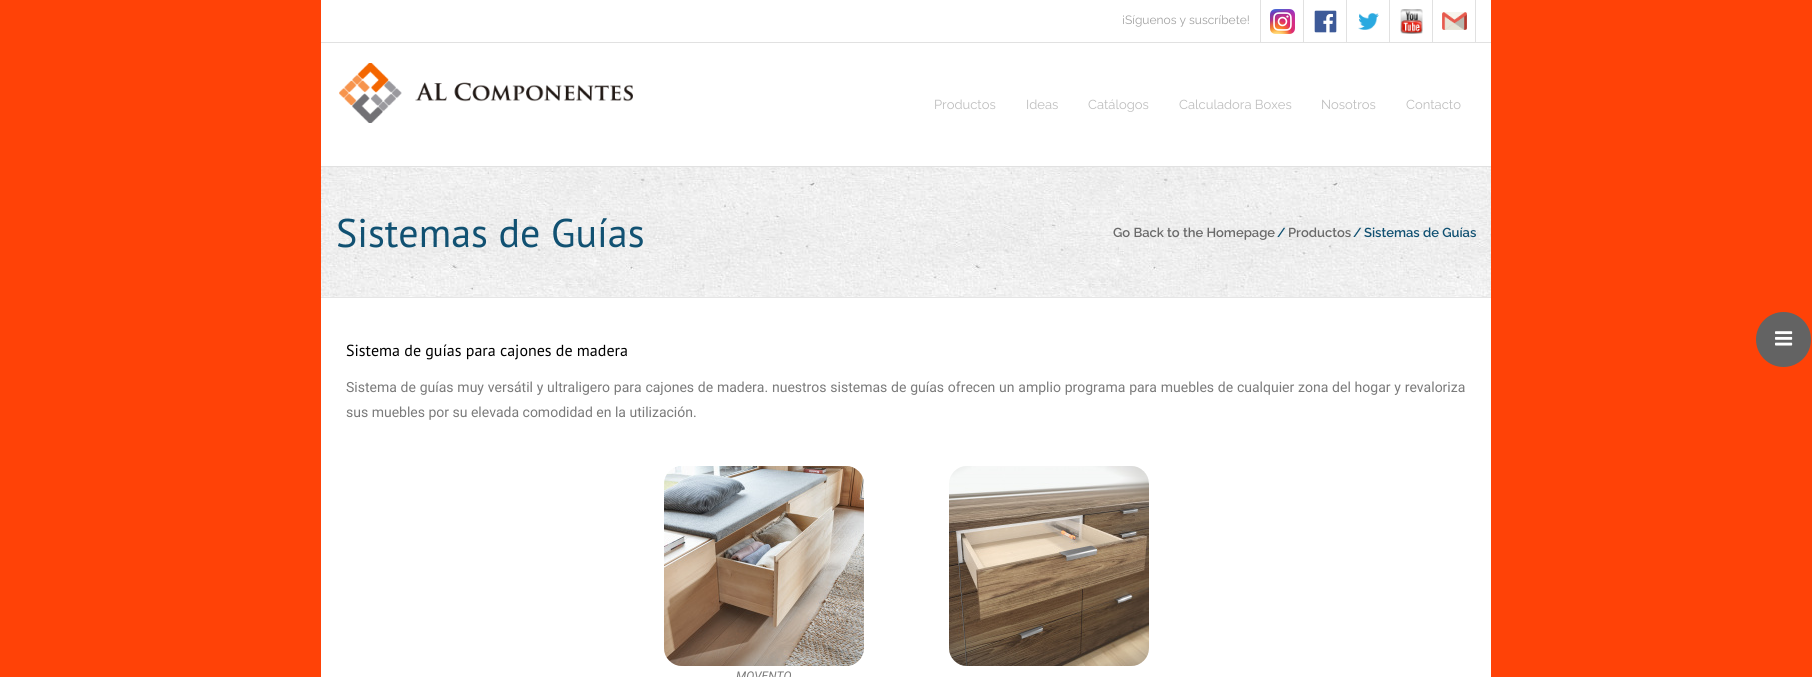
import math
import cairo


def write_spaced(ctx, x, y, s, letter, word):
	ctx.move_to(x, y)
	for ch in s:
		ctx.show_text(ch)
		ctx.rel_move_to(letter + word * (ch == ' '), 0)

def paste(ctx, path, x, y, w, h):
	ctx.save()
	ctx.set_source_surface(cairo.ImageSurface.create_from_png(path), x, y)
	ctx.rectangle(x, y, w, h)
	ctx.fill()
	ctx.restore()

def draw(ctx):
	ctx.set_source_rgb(1, 0.259, 0.031)
	ctx.paint()
	ctx.set_source_rgb(1, 1, 1)
	ctx.rectangle(321, 0, 1170, 677)
	ctx.fill()
	ctx.set_source_rgb(0.882, 0.882, 0.882)
	ctx.rectangle(321, 42, 1170, 1)
	ctx.fill()
	ctx.select_font_face('Raleway')
	ctx.set_font_size(12)
	ctx.set_source_rgb(0.631, 0.631, 0.631)
	ctx.move_to(1122, 24)
	ctx.show_text('¡Síguenos y suscríbete!')
	ctx.set_source_rgb(0.882, 0.882, 0.882)
	ctx.rectangle(1260, 0, 1, 42)
	ctx.fill()
	paste(ctx, 'media/1.png', 1270, 9, 25, 25)
	ctx.rectangle(1303, 0, 1, 42)
	ctx.fill()
	paste(ctx, 'media/2.png', 1314, 10, 23, 23)
	ctx.rectangle(1346, 0, 1, 42)
	ctx.fill()
	paste(ctx, 'media/3.png', 1358, 13, 21, 17)
	ctx.rectangle(1389, 0, 1, 42)
	ctx.fill()
	paste(ctx, 'media/4.png', 1400, 9, 23, 25)
	ctx.rectangle(1475, 0, 1, 42)
	ctx.fill()
	ctx.rectangle(1432, 0, 1, 42)
	ctx.fill()
	paste(ctx, 'media/5.png', 1442, 12, 25, 18)
	ctx.rectangle(321, 166, 1170, 1)
	ctx.fill()
	paste(ctx, 'media/6.png', 339, 63, 294, 60)
	ctx.set_font_size(13)
	ctx.set_source_rgb(0.745, 0.745, 0.745)
	for x, y, s in [
		(934, 109, 'Productos'),
		(1026, 109, 'Ideas'),
		(1088, 109, 'Catálogos'),
		(1179, 109, 'Calculadora Boxes'),
		(1321, 109, 'Nosotros'),
		(1406, 109, 'Contacto'),
	]:
		ctx.move_to(x, y)
		ctx.show_text(s)
	paste(ctx, 'media/7.png', 321, 167, 1170, 130)
	ctx.set_source_rgb(0.898, 0.898, 0.898)
	ctx.rectangle(321, 297, 1170, 1)
	ctx.fill()
	ctx.select_font_face('PT Sans')
	ctx.set_font_size(40)
	ctx.set_source_rgb(0.067, 0.318, 0.447)
	ctx.move_to(336, 247)
	ctx.show_text('Sistemas de Guías')
	ctx.select_font_face('Raleway SemiBold')
	ctx.set_font_size(13)
	ctx.set_source_rgb(0.416, 0.416, 0.416)
	ctx.move_to(1113, 237)
	ctx.show_text('Go Back to the Homepage')
	ctx.set_source_rgb(0.067, 0.318, 0.447)
	ctx.move_to(1277, 237)
	ctx.show_text('/')
	ctx.set_source_rgb(0.416, 0.416, 0.416)
	ctx.move_to(1288, 237)
	ctx.show_text('Productos')
	ctx.set_source_rgb(0.067, 0.318, 0.447)
	ctx.move_to(1353, 237)
	ctx.show_text('/')
	ctx.move_to(1364, 237)
	ctx.show_text('Sistemas de Guías')
	ctx.select_font_face('PT Sans')
	ctx.set_font_size(16)
	ctx.set_source_rgb(0, 0, 0)
	ctx.move_to(346, 356)
	ctx.show_text('Sistema de guías para cajones de madera')
	ctx.select_font_face('Roboto')
	ctx.set_font_size(14)
	ctx.set_source_rgb(0.478, 0.478, 0.478)
	write_spaced(ctx, 346, 392, 'Sistema de guías muy versátil y ultraligero para cajones de madera. nuestros sistemas de guías ofrecen un amplio programa para muebles de cualquier zona del hogar y revaloriza', 0, 0.3)
	ctx.move_to(346, 417)
	ctx.show_text('sus muebles por su elevada comodidad en la utilización.')
	paste(ctx, 'media/8.png', 949, 466, 200, 200)
	paste(ctx, 'media/9.png', 664, 466, 200, 200)
	ctx.select_font_face('Roboto', cairo.FONT_SLANT_ITALIC)
	ctx.set_font_size(12)
	ctx.move_to(736, 680)
	ctx.show_text('MOVENTO')
	ctx.set_source_rgb(0.388, 0.388, 0.388)
	ctx.new_path()
	ctx.arc(1783.5, 339.5, 27.5, 0, 2 * math.pi)
	ctx.fill()
	paste(ctx, 'media/10.png', 1775, 331, 18, 15)


surface = cairo.ImageSurface(cairo.FORMAT_RGB24, 1812, 677)
ctx = cairo.Context(surface)
options = cairo.FontOptions()
options.set_hint_metrics(cairo.HINT_METRICS_OFF)
options.set_hint_style(cairo.HINT_STYLE_NONE)
ctx.set_font_options(options)
ctx.set_miter_limit(4)
draw(ctx)
surface.write_to_png('image.png')
